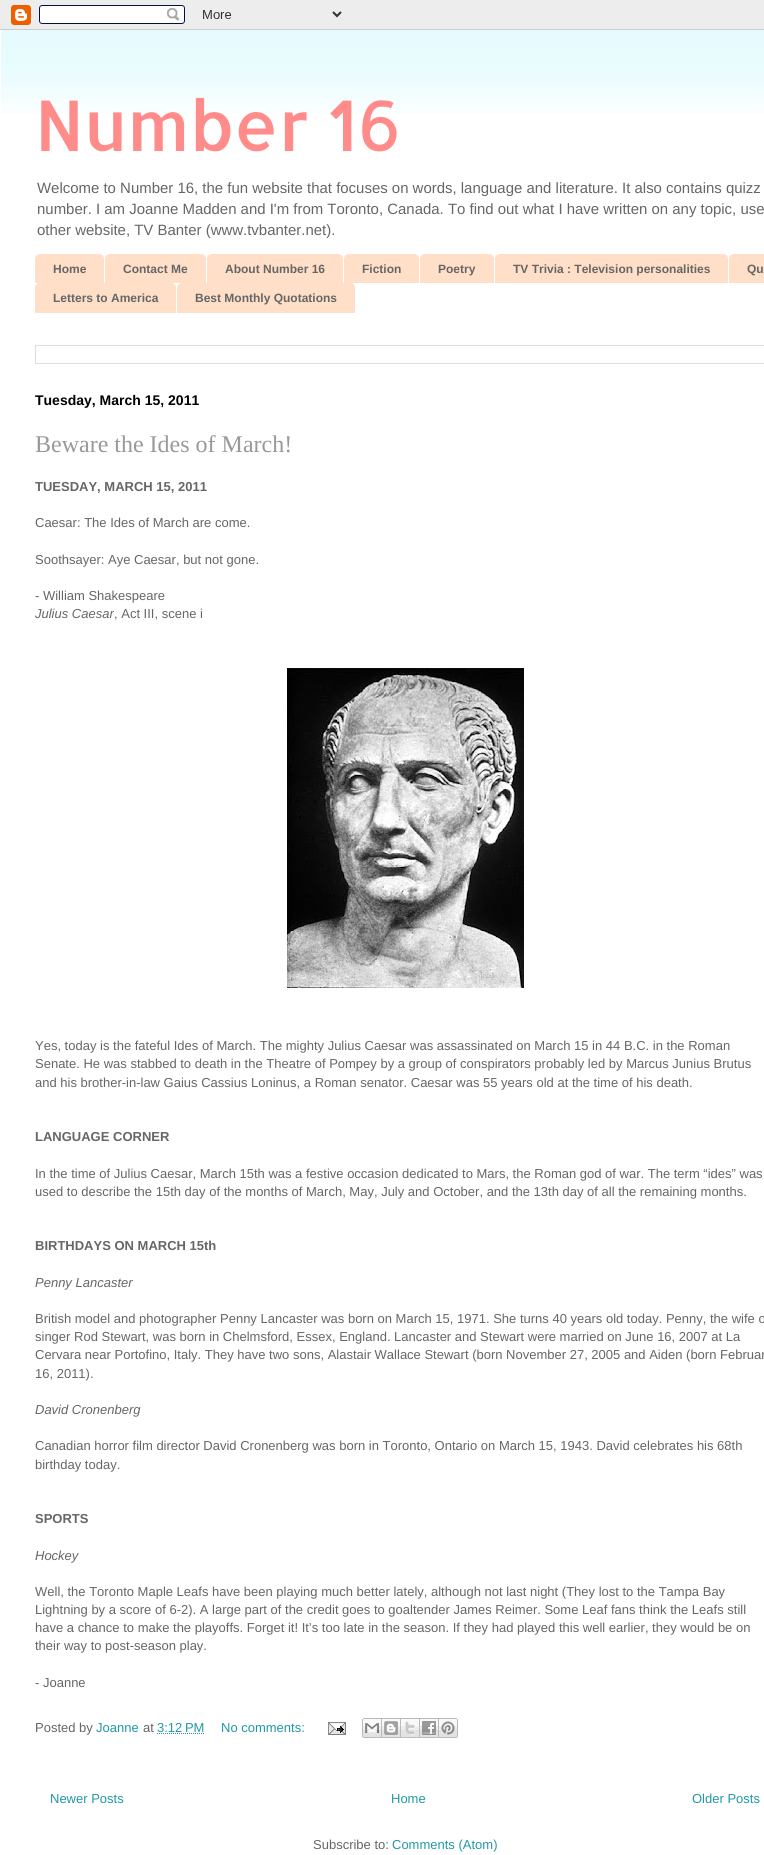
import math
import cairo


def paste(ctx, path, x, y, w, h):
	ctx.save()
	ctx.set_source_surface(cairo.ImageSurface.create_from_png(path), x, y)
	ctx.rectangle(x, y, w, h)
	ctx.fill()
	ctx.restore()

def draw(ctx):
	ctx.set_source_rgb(1, 1, 1)
	ctx.paint()
	paste(ctx, 'media/1.png', 0, 0, 764, 30)
	paste(ctx, 'media/2.png', 1, 30, 763, 84)
	ctx.select_font_face('Allerta')
	ctx.set_font_size(70)
	ctx.set_source_rgb(1, 0.545, 0.545)
	ctx.move_to(35, 151)
	ctx.show_text('Number 16')
	ctx.select_font_face('Liberation Sans')
	ctx.set_font_size(14.95)
	ctx.set_source_rgb(0.4, 0.4, 0.4)
	for x, y, s in [
		(37, 193, 'Welcome to Number 16, the fun website that focuses on words, language and literature. It also contains quizz'),
		(37, 214, 'number. I am Joanne Madden and I\'m from Toronto, Canada. To find out what I have written on any topic, use'),
		(37, 235, 'other website, TV Banter (www.tvbanter.net).'),
	]:
		ctx.move_to(x, y)
		ctx.show_text(s)
	ctx.set_source_rgb(1, 0.875, 0.78)
	ctx.new_path()
	ctx.move_to(40, 254)
	ctx.line_to(99, 254)
	ctx.curve_to(102, 254, 104, 256, 104, 259)
	ctx.line_to(104, 283)
	ctx.line_to(35, 283)
	ctx.line_to(35, 259)
	ctx.curve_to(35, 256, 37, 254, 40, 254)
	ctx.close_path()
	ctx.fill()
	ctx.select_font_face('Liberation Sans', cairo.FONT_SLANT_NORMAL, cairo.FONT_WEIGHT_BOLD)
	ctx.set_font_size(12)
	ctx.set_source_rgb(0.4, 0.4, 0.4)
	ctx.move_to(53, 273)
	ctx.show_text('Home')
	ctx.set_source_rgb(1, 0.875, 0.78)
	ctx.new_path()
	ctx.move_to(110, 254)
	ctx.line_to(201, 254)
	ctx.curve_to(204, 254, 206, 256, 206, 259)
	ctx.line_to(206, 283)
	ctx.line_to(105, 283)
	ctx.line_to(105, 259)
	ctx.curve_to(105, 256, 107, 254, 110, 254)
	ctx.close_path()
	ctx.fill()
	ctx.set_source_rgb(0.4, 0.4, 0.4)
	ctx.move_to(123, 273)
	ctx.show_text('Contact Me')
	ctx.set_source_rgb(1, 0.875, 0.78)
	ctx.new_path()
	ctx.move_to(212, 254)
	ctx.line_to(338, 254)
	ctx.curve_to(341, 254, 343, 256, 343, 259)
	ctx.line_to(343, 283)
	ctx.line_to(207, 283)
	ctx.line_to(207, 259)
	ctx.curve_to(207, 256, 209, 254, 212, 254)
	ctx.close_path()
	ctx.fill()
	ctx.set_source_rgb(0.4, 0.4, 0.4)
	ctx.move_to(225, 273)
	ctx.show_text('About Number 16')
	ctx.set_source_rgb(1, 0.875, 0.78)
	ctx.new_path()
	ctx.move_to(349, 254)
	ctx.line_to(414, 254)
	ctx.curve_to(417, 254, 419, 256, 419, 259)
	ctx.line_to(419, 283)
	ctx.line_to(344, 283)
	ctx.line_to(344, 259)
	ctx.curve_to(344, 256, 346, 254, 349, 254)
	ctx.close_path()
	ctx.fill()
	ctx.set_source_rgb(0.4, 0.4, 0.4)
	ctx.move_to(362, 273)
	ctx.show_text('Fiction')
	ctx.set_source_rgb(1, 0.875, 0.78)
	ctx.new_path()
	ctx.move_to(425, 254)
	ctx.line_to(489, 254)
	ctx.curve_to(492, 254, 494, 256, 494, 259)
	ctx.line_to(494, 283)
	ctx.line_to(420, 283)
	ctx.line_to(420, 259)
	ctx.curve_to(420, 256, 422, 254, 425, 254)
	ctx.close_path()
	ctx.fill()
	ctx.set_source_rgb(0.4, 0.4, 0.4)
	ctx.move_to(438, 273)
	ctx.show_text('Poetry')
	ctx.set_source_rgb(1, 0.875, 0.78)
	ctx.new_path()
	ctx.move_to(500, 254)
	ctx.line_to(723, 254)
	ctx.curve_to(726, 254, 728, 256, 728, 259)
	ctx.line_to(728, 283)
	ctx.line_to(495, 283)
	ctx.line_to(495, 259)
	ctx.curve_to(495, 256, 497, 254, 500, 254)
	ctx.close_path()
	ctx.fill()
	ctx.set_source_rgb(0.4, 0.4, 0.4)
	ctx.move_to(513, 273)
	ctx.show_text('TV Trivia : Television personalities')
	ctx.set_source_rgb(1, 0.875, 0.78)
	ctx.new_path()
	ctx.move_to(734, 254)
	ctx.line_to(764, 254)
	ctx.curve_to(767, 254, 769, 256, 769, 259)
	ctx.line_to(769, 283)
	ctx.line_to(729, 283)
	ctx.line_to(729, 259)
	ctx.curve_to(729, 256, 731, 254, 734, 254)
	ctx.close_path()
	ctx.fill()
	ctx.set_source_rgb(0.4, 0.4, 0.4)
	ctx.move_to(747, 273)
	ctx.show_text('Qu')
	ctx.set_source_rgb(1, 0.875, 0.78)
	ctx.new_path()
	ctx.move_to(40, 283)
	ctx.line_to(171, 283)
	ctx.curve_to(174, 283, 176, 285, 176, 288)
	ctx.line_to(176, 313)
	ctx.line_to(35, 313)
	ctx.line_to(35, 288)
	ctx.curve_to(35, 285, 37, 283, 40, 283)
	ctx.close_path()
	ctx.fill()
	ctx.set_source_rgb(0.4, 0.4, 0.4)
	ctx.move_to(53, 302)
	ctx.show_text('Letters to America')
	ctx.set_source_rgb(1, 0.875, 0.78)
	ctx.new_path()
	ctx.move_to(182, 283)
	ctx.line_to(350, 283)
	ctx.curve_to(353, 283, 355, 285, 355, 288)
	ctx.line_to(355, 313)
	ctx.line_to(177, 313)
	ctx.line_to(177, 288)
	ctx.curve_to(177, 285, 179, 283, 182, 283)
	ctx.close_path()
	ctx.fill()
	ctx.set_source_rgb(0.4, 0.4, 0.4)
	ctx.move_to(195, 302)
	ctx.show_text('Best Monthly Quotations')
	ctx.rectangle(35.5, 345.5, 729, 18)
	ctx.set_source_rgb(0.867, 0.867, 0.867)
	ctx.set_line_width(1)
	ctx.stroke()
	ctx.set_font_size(14)
	ctx.set_source_rgb(0, 0, 0)
	ctx.move_to(35, 405)
	ctx.show_text('Tuesday, March 15, 2011')
	ctx.select_font_face('Liberation Serif')
	ctx.set_font_size(24)
	ctx.set_source_rgb(0.6, 0.6, 0.6)
	ctx.move_to(35, 452)
	ctx.show_text('Beware the Ides of March!')
	ctx.select_font_face('Liberation Sans', cairo.FONT_SLANT_NORMAL, cairo.FONT_WEIGHT_BOLD)
	ctx.set_font_size(13)
	ctx.set_source_rgb(0.4, 0.4, 0.4)
	ctx.move_to(35, 491)
	ctx.show_text('TUESDAY, MARCH 15, 2011')
	ctx.select_font_face('Liberation Sans')
	for x, y, s in [
		(35, 527, 'Caesar: The Ides of March are come.'),
		(35, 564, 'Soothsayer: Aye Caesar, but not gone.'),
		(35, 600, '- William Shakespeare'),
	]:
		ctx.move_to(x, y)
		ctx.show_text(s)
	ctx.select_font_face('Liberation Sans', cairo.FONT_SLANT_ITALIC)
	ctx.move_to(35, 618)
	ctx.show_text('Julius Caesar')
	ctx.select_font_face('Liberation Sans')
	ctx.move_to(114, 618)
	ctx.show_text(', Act III, scene i')
	paste(ctx, 'media/3.png', 287, 668, 237, 320)
	for x, y, s in [
		(35, 1050, 'Yes, today is the fateful Ides of March. The mighty Julius Caesar was assassinated on March 15 in 44 B.C. in the Roman'),
		(35, 1068, 'Senate. He was stabbed to death in the Theatre of Pompey by a group of conspirators probably led by Marcus Junius Brutus'),
		(35, 1087, 'and his brother-in-law Gaius Cassius Loninus, a Roman senator. Caesar was 55 years old at the time of his death.'),
	]:
		ctx.move_to(x, y)
		ctx.show_text(s)
	ctx.select_font_face('Liberation Sans', cairo.FONT_SLANT_NORMAL, cairo.FONT_WEIGHT_BOLD)
	ctx.move_to(35, 1141)
	ctx.show_text('LANGUAGE CORNER')
	ctx.select_font_face('Liberation Sans')
	ctx.move_to(35, 1178)
	ctx.show_text('In the time of Julius Caesar, March 15th was a festive occasion dedicated to Mars, the Roman god of war. The term “ides” was')
	ctx.move_to(35, 1196)
	ctx.show_text('used to describe the 15th day of the months of March, May, July and October, and the 13th day of all the remaining months.')
	ctx.select_font_face('Liberation Sans', cairo.FONT_SLANT_NORMAL, cairo.FONT_WEIGHT_BOLD)
	ctx.move_to(35, 1250)
	ctx.show_text('BIRTHDAYS ON MARCH 15th')
	ctx.select_font_face('Liberation Sans', cairo.FONT_SLANT_ITALIC)
	ctx.move_to(35, 1287)
	ctx.show_text('Penny Lancaster')
	ctx.select_font_face('Liberation Sans')
	for x, y, s in [
		(35, 1323, 'British model and photographer Penny Lancaster was born on March 15, 1971. She turns 40 years old today. Penny, the wife o'),
		(35, 1341, 'singer Rod Stewart, was born in Chelmsford, Essex, England. Lancaster and Stewart were married on June 16, 2007 at La'),
		(35, 1359, 'Cervara near Portofino, Italy. They have two sons, Alastair Wallace Stewart (born November 27, 2005 and Aiden (born Februar'),
		(35, 1378, '16, 2011).'),
	]:
		ctx.move_to(x, y)
		ctx.show_text(s)
	ctx.select_font_face('Liberation Sans', cairo.FONT_SLANT_ITALIC)
	ctx.move_to(35, 1414)
	ctx.show_text('David Cronenberg')
	ctx.select_font_face('Liberation Sans')
	ctx.move_to(35, 1450)
	ctx.show_text('Canadian horror film director David Cronenberg was born in Toronto, Ontario on March 15, 1943. David celebrates his 68th')
	ctx.move_to(35, 1469)
	ctx.show_text('birthday today.')
	ctx.select_font_face('Liberation Sans', cairo.FONT_SLANT_NORMAL, cairo.FONT_WEIGHT_BOLD)
	ctx.move_to(35, 1523)
	ctx.show_text('SPORTS')
	ctx.select_font_face('Liberation Sans', cairo.FONT_SLANT_ITALIC)
	ctx.move_to(35, 1560)
	ctx.show_text('Hockey')
	ctx.select_font_face('Liberation Sans')
	for x, y, s in [
		(35, 1596, 'Well, the Toronto Maple Leafs have been playing much better lately, although not last night (They lost to the Tampa Bay'),
		(35, 1614, 'Lightning by a score of 6-2). A large part of the credit goes to goaltender James Reimer. Some Leaf fans think the Leafs still'),
		(35, 1632, 'have a chance to make the playoffs. Forget it! It’s too late in the season. If they had played this well earlier, they would be on'),
		(35, 1650, 'their way to post-season play.'),
		(35, 1687, '- Joanne'),
		(35, 1732, 'Posted by'),
	]:
		ctx.move_to(x, y)
		ctx.show_text(s)
	ctx.set_source_rgb(0.129, 0.596, 0.651)
	ctx.move_to(96, 1732)
	ctx.show_text('Joanne')
	ctx.set_source_rgb(0.4, 0.4, 0.4)
	ctx.move_to(143, 1732)
	ctx.show_text('at')
	ctx.set_source_rgb(0.129, 0.596, 0.651)
	ctx.move_to(157, 1732)
	ctx.show_text('3:12 PM')
	ctx.new_path()
	ctx.move_to(157, 1733.5)
	ctx.line_to(204.5, 1733.5)
	ctx.set_dash([1, 1])
	ctx.stroke()
	ctx.move_to(221, 1732)
	ctx.show_text('No comments:')
	paste(ctx, 'media/4.png', 328, 1722, 18, 13)
	paste(ctx, 'media/5.png', 362, 1718, 20, 20)
	paste(ctx, 'media/6.png', 382, 1718, 19, 20)
	paste(ctx, 'media/7.png', 401, 1718, 19, 20)
	paste(ctx, 'media/8.png', 420, 1718, 19, 20)
	paste(ctx, 'media/9.png', 439, 1718, 19, 20)
	for x, y, s in [
		(50, 1803, 'Newer Posts'),
		(391, 1803, 'Home'),
		(692, 1803, 'Older Posts'),
	]:
		ctx.move_to(x, y)
		ctx.show_text(s)
	ctx.set_source_rgb(0.4, 0.4, 0.4)
	ctx.move_to(313, 1849)
	ctx.show_text('Subscribe to:')
	ctx.set_source_rgb(0.129, 0.596, 0.651)
	ctx.move_to(392, 1849)
	ctx.show_text('Comments (Atom)')


surface = cairo.ImageSurface(cairo.FORMAT_RGB24, 764, 1855)
ctx = cairo.Context(surface)
options = cairo.FontOptions()
options.set_hint_metrics(cairo.HINT_METRICS_OFF)
options.set_hint_style(cairo.HINT_STYLE_NONE)
ctx.set_font_options(options)
ctx.set_miter_limit(4)
draw(ctx)
surface.write_to_png('image.png')
